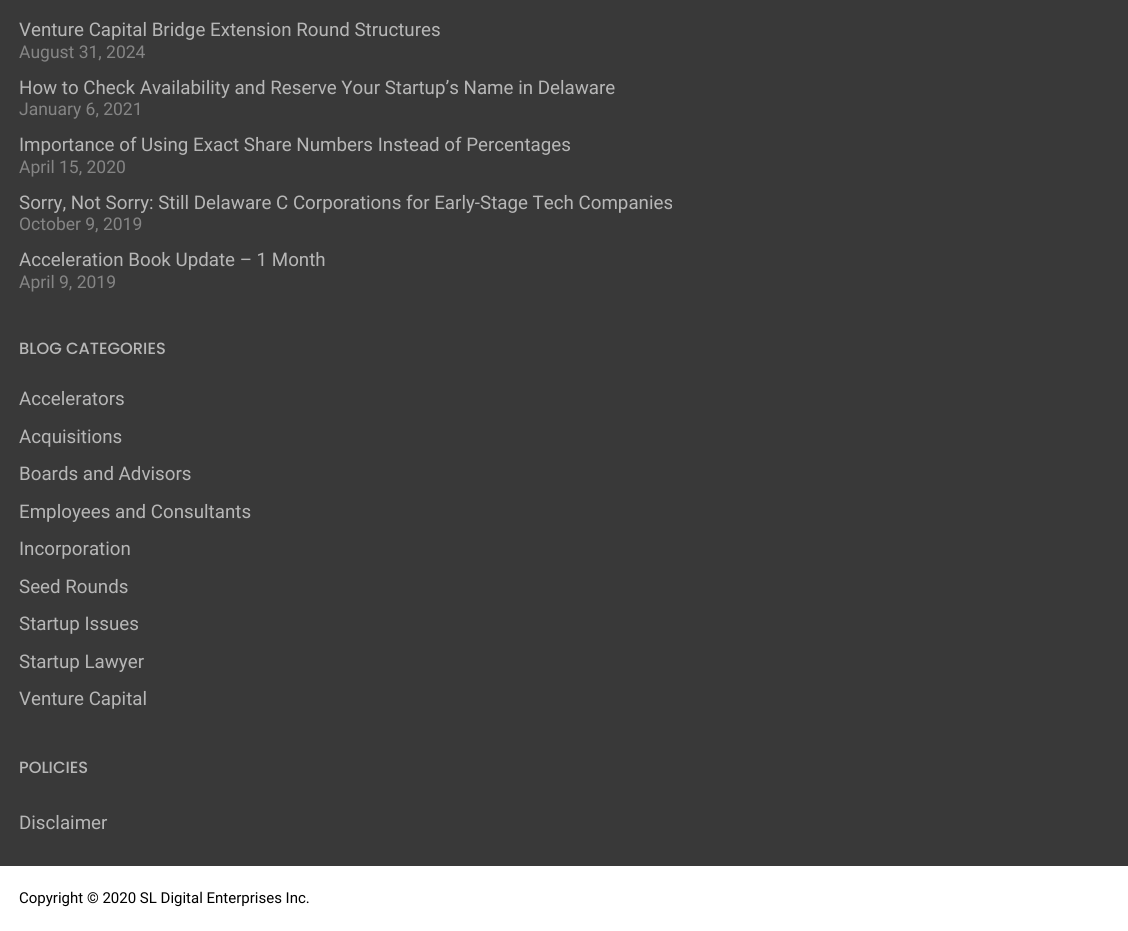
import math
import cairo


def draw(ctx):
	ctx.set_source_rgb(1, 1, 1)
	ctx.paint()
	ctx.set_source_rgb(0.224, 0.224, 0.224)
	ctx.rectangle(0, 0, 1128, 866)
	ctx.fill()
	ctx.select_font_face('Roboto')
	ctx.set_font_size(18.75)
	ctx.set_source_rgb(0.718, 0.718, 0.718)
	ctx.move_to(19, 36)
	ctx.show_text('Venture Capital Bridge Extension Round Structures')
	ctx.set_font_size(17.5)
	ctx.set_source_rgb(0.522, 0.522, 0.522)
	ctx.move_to(19, 58)
	ctx.show_text('August 31, 2024')
	ctx.set_font_size(18.75)
	ctx.set_source_rgb(0.718, 0.718, 0.718)
	ctx.move_to(19, 94)
	ctx.show_text('How to Check Availability and Reserve Your Startup’s Name in Delaware')
	ctx.set_font_size(17.5)
	ctx.set_source_rgb(0.522, 0.522, 0.522)
	ctx.move_to(19, 115)
	ctx.show_text('January 6, 2021')
	ctx.set_font_size(18.75)
	ctx.set_source_rgb(0.718, 0.718, 0.718)
	ctx.move_to(19, 151)
	ctx.show_text('Importance of Using Exact Share Numbers Instead of Percentages')
	ctx.set_font_size(17.5)
	ctx.set_source_rgb(0.522, 0.522, 0.522)
	ctx.move_to(19, 173)
	ctx.show_text('April 15, 2020')
	ctx.set_font_size(18.75)
	ctx.set_source_rgb(0.718, 0.718, 0.718)
	ctx.move_to(19, 209)
	ctx.show_text('Sorry, Not Sorry: Still Delaware C Corporations for Early-Stage Tech Companies')
	ctx.set_font_size(17.5)
	ctx.set_source_rgb(0.522, 0.522, 0.522)
	ctx.move_to(19, 230)
	ctx.show_text('October 9, 2019')
	ctx.set_font_size(18.75)
	ctx.set_source_rgb(0.718, 0.718, 0.718)
	ctx.move_to(19, 266)
	ctx.show_text('Acceleration Book Update – 1 Month')
	ctx.set_font_size(17.5)
	ctx.set_source_rgb(0.522, 0.522, 0.522)
	ctx.move_to(19, 288)
	ctx.show_text('April 9, 2019')
	ctx.select_font_face('Poppins Medium')
	ctx.set_font_size(16.25)
	ctx.set_source_rgb(0.718, 0.718, 0.718)
	ctx.move_to(19, 354)
	ctx.show_text('BLOG CATEGORIES')
	ctx.select_font_face('Roboto')
	ctx.set_font_size(18.75)
	for x, y, s in [
		(19, 405, 'Accelerators'),
		(19, 443, 'Acquisitions'),
		(19, 480, 'Boards and Advisors'),
		(19, 518, 'Employees and Consultants'),
		(19, 555, 'Incorporation'),
		(19, 593, 'Seed Rounds'),
		(19, 630, 'Startup Issues'),
		(19, 668, 'Startup Lawyer'),
		(19, 705, 'Venture Capital'),
	]:
		ctx.move_to(x, y)
		ctx.show_text(s)
	ctx.select_font_face('Poppins Medium')
	ctx.set_font_size(16.25)
	ctx.move_to(19, 773)
	ctx.show_text('POLICIES')
	ctx.select_font_face('Roboto')
	ctx.set_font_size(18.75)
	ctx.move_to(19, 829)
	ctx.show_text('Disclaimer')
	ctx.set_font_size(15)
	ctx.set_source_rgb(0, 0, 0)
	ctx.move_to(19, 903)
	ctx.show_text('Copyright © 2020 SL Digital Enterprises Inc.')


surface = cairo.ImageSurface(cairo.FORMAT_RGB24, 1128, 931)
ctx = cairo.Context(surface)
options = cairo.FontOptions()
options.set_hint_metrics(cairo.HINT_METRICS_OFF)
options.set_hint_style(cairo.HINT_STYLE_NONE)
ctx.set_font_options(options)
ctx.set_miter_limit(4)
draw(ctx)
surface.write_to_png('image.png')
